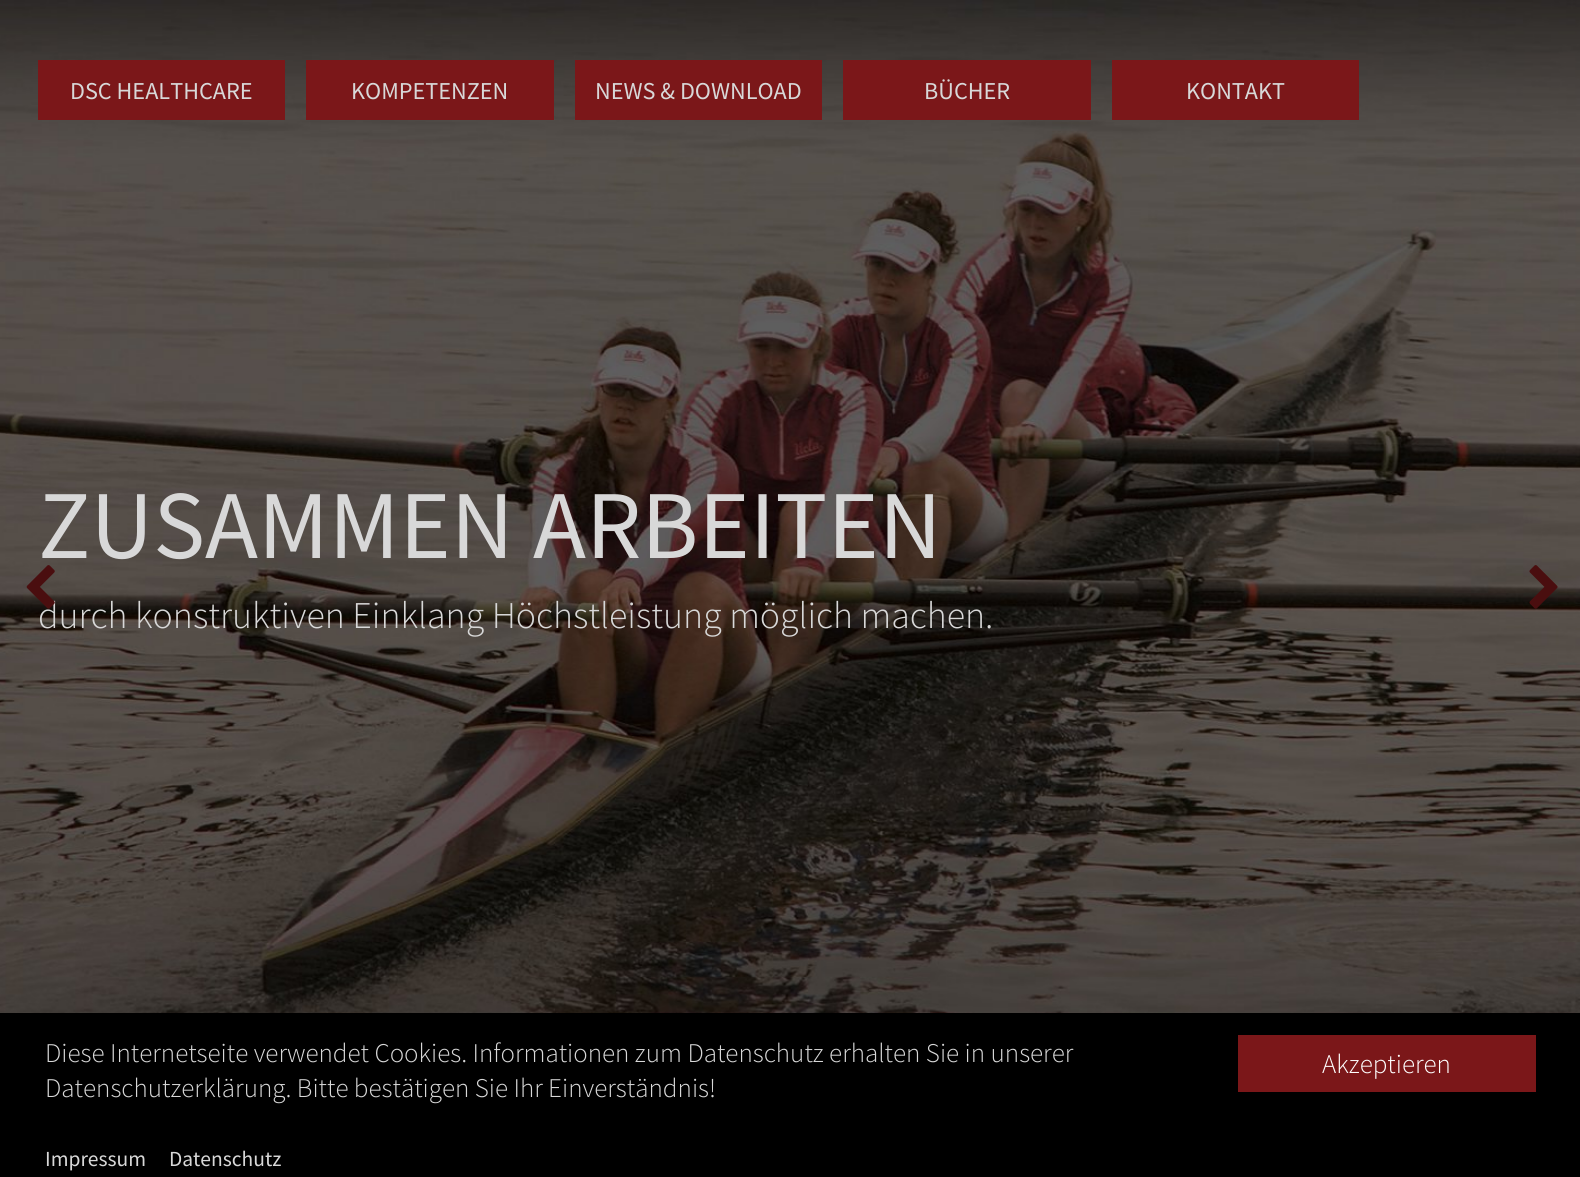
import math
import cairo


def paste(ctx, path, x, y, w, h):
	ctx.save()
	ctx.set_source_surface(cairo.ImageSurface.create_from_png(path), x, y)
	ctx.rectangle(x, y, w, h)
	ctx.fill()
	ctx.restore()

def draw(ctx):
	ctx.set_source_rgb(1, 1, 1)
	ctx.paint()
	paste(ctx, 'media/1.png', 0, 0, 1580, 1013)
	ctx.set_source_rgb(0.482, 0.09, 0.098)
	ctx.rectangle(38, 60, 247, 60)
	ctx.fill()
	ctx.select_font_face('Source Sans Pro')
	ctx.set_font_size(24.25)
	ctx.set_source_rgb(0.847, 0.847, 0.847)
	ctx.move_to(70, 99)
	ctx.show_text('DSC HEALTHCARE')
	ctx.set_source_rgb(0.482, 0.09, 0.098)
	ctx.rectangle(306, 60, 248, 60)
	ctx.fill()
	ctx.set_source_rgb(0.847, 0.847, 0.847)
	ctx.move_to(351, 99)
	ctx.show_text('KOMPETENZEN')
	ctx.set_source_rgb(0.482, 0.09, 0.098)
	ctx.rectangle(575, 60, 247, 60)
	ctx.fill()
	ctx.set_source_rgb(0.847, 0.847, 0.847)
	ctx.move_to(595, 99)
	ctx.show_text('NEWS & DOWNLOAD')
	ctx.set_source_rgb(0.482, 0.09, 0.098)
	ctx.rectangle(843, 60, 248, 60)
	ctx.fill()
	ctx.set_source_rgb(0.847, 0.847, 0.847)
	ctx.move_to(924, 99)
	ctx.show_text('BÜCHER')
	ctx.set_source_rgb(0.482, 0.09, 0.098)
	ctx.rectangle(1112, 60, 247, 60)
	ctx.fill()
	ctx.set_source_rgb(0.847, 0.847, 0.847)
	ctx.move_to(1186, 99)
	ctx.show_text('KONTAKT')
	ctx.set_font_size(97.25)
	ctx.move_to(38, 558)
	ctx.show_text('ZUSAMMEN ARBEITEN')
	ctx.select_font_face('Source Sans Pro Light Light')
	ctx.set_font_size(37.8)
	ctx.move_to(38, 628)
	ctx.show_text('durch konstruktiven Einklang Höchstleistung möglich machen.')
	paste(ctx, 'media/2.png', 26, 565, 29, 44)
	paste(ctx, 'media/3.png', 1529, 565, 29, 44)
	ctx.set_source_rgb(0, 0, 0)
	ctx.rectangle(0, 1013, 1580, 164)
	ctx.fill()
	ctx.set_font_size(27)
	ctx.set_source_rgb(0.847, 0.847, 0.847)
	ctx.move_to(45, 1062)
	ctx.show_text('Diese Internetseite verwendet Cookies. Informationen zum Datenschutz erhalten Sie in unserer')
	ctx.move_to(45, 1097)
	ctx.show_text('Datenschutzerklärung. Bitte bestätigen Sie Ihr Einverständnis!')
	ctx.set_source_rgb(0.482, 0.09, 0.098)
	ctx.rectangle(1238, 1035, 298, 57)
	ctx.fill()
	ctx.set_source_rgb(1, 1, 1)
	ctx.move_to(1322, 1073)
	ctx.show_text('Akzeptieren')
	ctx.select_font_face('Source Sans Pro')
	ctx.set_font_size(21.5)
	ctx.set_source_rgb(0.847, 0.847, 0.847)
	ctx.move_to(45, 1166)
	ctx.show_text('Impressum')
	ctx.move_to(169, 1166)
	ctx.show_text('Datenschutz')


surface = cairo.ImageSurface(cairo.FORMAT_RGB24, 1580, 1177)
ctx = cairo.Context(surface)
options = cairo.FontOptions()
options.set_hint_metrics(cairo.HINT_METRICS_OFF)
options.set_hint_style(cairo.HINT_STYLE_NONE)
ctx.set_font_options(options)
ctx.set_miter_limit(4)
draw(ctx)
surface.write_to_png('image.png')
